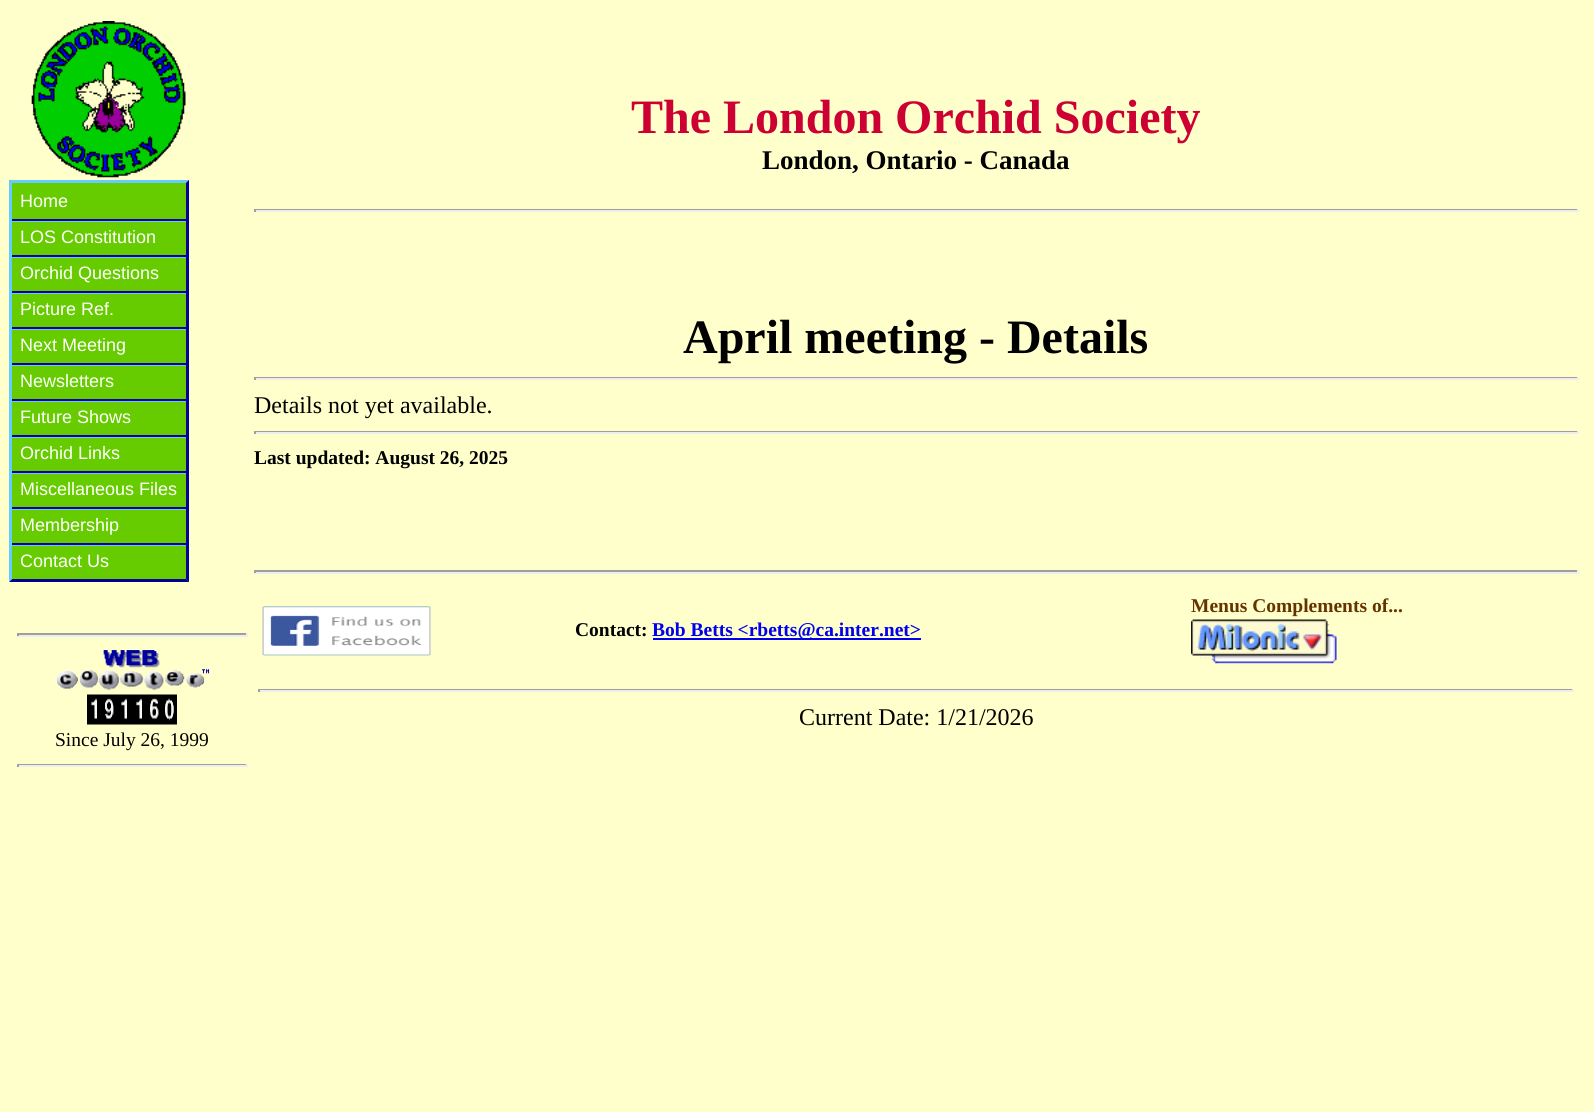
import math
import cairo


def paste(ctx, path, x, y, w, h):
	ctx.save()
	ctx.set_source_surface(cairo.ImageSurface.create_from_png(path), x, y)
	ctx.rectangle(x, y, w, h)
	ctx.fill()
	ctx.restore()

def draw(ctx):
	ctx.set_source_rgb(1, 1, 0.8)
	ctx.paint()
	ctx.select_font_face('Liberation Serif', cairo.FONT_SLANT_NORMAL, cairo.FONT_WEIGHT_BOLD)
	ctx.set_font_size(48)
	ctx.set_source_rgb(0.8, 0, 0.2)
	ctx.move_to(631, 133)
	ctx.show_text('The London Orchid Society')
	ctx.set_font_size(27)
	ctx.set_source_rgb(0, 0, 0)
	ctx.move_to(762, 169)
	ctx.show_text('London, Ontario - Canada')
	ctx.set_source_rgb(0.624, 0.624, 0.624)
	ctx.rectangle(254, 209, 1324, 1)
	ctx.fill()
	ctx.set_source_rgb(0.933, 0.933, 0.933)
	ctx.rectangle(1577, 209, 2, 3)
	ctx.rectangle(254, 210, 1324, 2)
	ctx.fill()
	ctx.set_source_rgb(0.624, 0.624, 0.624)
	ctx.rectangle(254, 209, 2, 3)
	ctx.fill()
	paste(ctx, 'media/1.png', 31, 21, 155, 157)
	ctx.rectangle(17, 633, 231, 2)
	ctx.fill()
	ctx.set_source_rgb(0.933, 0.933, 0.933)
	ctx.rectangle(246, 633, 2, 3)
	ctx.rectangle(17, 635, 231, 2)
	ctx.fill()
	ctx.set_source_rgb(0.624, 0.624, 0.624)
	ctx.rectangle(17, 633, 2, 3)
	ctx.fill()
	paste(ctx, 'media/2.png', 56, 650, 154, 40)
	paste(ctx, 'media/3.png', 87, 694, 90, 31)
	ctx.select_font_face('Liberation Serif')
	ctx.set_font_size(19.5)
	ctx.set_source_rgb(0, 0, 0)
	ctx.move_to(55, 746)
	ctx.show_text('Since July 26, 1999')
	ctx.set_source_rgb(0.624, 0.624, 0.624)
	ctx.rectangle(17, 764, 231, 1)
	ctx.fill()
	ctx.set_source_rgb(0.933, 0.933, 0.933)
	ctx.rectangle(246, 764, 2, 3)
	ctx.rectangle(17, 765, 231, 2)
	ctx.fill()
	ctx.set_source_rgb(0.624, 0.624, 0.624)
	ctx.rectangle(17, 764, 2, 3)
	ctx.fill()
	ctx.select_font_face('Liberation Serif', cairo.FONT_SLANT_NORMAL, cairo.FONT_WEIGHT_BOLD)
	ctx.set_font_size(48)
	ctx.set_source_rgb(0, 0, 0)
	ctx.move_to(683, 353)
	ctx.show_text('April meeting - Details')
	ctx.set_source_rgb(0.624, 0.624, 0.624)
	ctx.rectangle(254, 377, 1324, 1)
	ctx.fill()
	ctx.set_source_rgb(0.933, 0.933, 0.933)
	ctx.rectangle(1577, 377, 2, 3)
	ctx.rectangle(254, 378, 1324, 2)
	ctx.fill()
	ctx.set_source_rgb(0.624, 0.624, 0.624)
	ctx.rectangle(254, 377, 2, 3)
	ctx.fill()
	ctx.select_font_face('Liberation Serif')
	ctx.set_font_size(24)
	ctx.set_source_rgb(0, 0, 0)
	ctx.move_to(254, 413)
	ctx.show_text('Details not yet available.')
	ctx.set_source_rgb(0.624, 0.624, 0.624)
	ctx.rectangle(254, 431, 1324, 1)
	ctx.fill()
	ctx.set_source_rgb(0.933, 0.933, 0.933)
	ctx.rectangle(1577, 431, 2, 3)
	ctx.rectangle(254, 432, 1324, 2)
	ctx.fill()
	ctx.set_source_rgb(0.624, 0.624, 0.624)
	ctx.rectangle(254, 431, 2, 3)
	ctx.fill()
	ctx.select_font_face('Liberation Serif', cairo.FONT_SLANT_NORMAL, cairo.FONT_WEIGHT_BOLD)
	ctx.set_font_size(19.5)
	ctx.set_source_rgb(0, 0, 0)
	ctx.move_to(254, 464)
	ctx.show_text('Last updated: August 26, 2025')
	ctx.set_source_rgb(0.624, 0.624, 0.624)
	ctx.rectangle(254, 570, 1324, 2)
	ctx.fill()
	ctx.set_source_rgb(0.933, 0.933, 0.933)
	ctx.rectangle(1577, 570, 2, 3)
	ctx.rectangle(254, 572, 1324, 2)
	ctx.fill()
	ctx.set_source_rgb(0.624, 0.624, 0.624)
	ctx.rectangle(254, 570, 2, 3)
	ctx.fill()
	paste(ctx, 'media/4.png', 262, 606, 169, 50)
	ctx.set_source_rgb(0, 0, 0)
	ctx.move_to(575, 636)
	ctx.show_text('Contact:')
	ctx.set_source_rgb(0, 0, 0.933)
	ctx.rectangle(653, 638, 268, 2)
	ctx.fill()
	ctx.move_to(652, 636)
	ctx.show_text('Bob Betts <rbetts@ca.inter.net>')
	ctx.set_source_rgb(0.4, 0.2, 0)
	ctx.move_to(1191, 612)
	ctx.show_text('Menus Complements of...')
	paste(ctx, 'media/5.png', 1191, 619, 146, 45)
	ctx.set_source_rgb(0.624, 0.624, 0.624)
	ctx.rectangle(258, 689, 1316, 1)
	ctx.fill()
	ctx.set_source_rgb(0.933, 0.933, 0.933)
	ctx.rectangle(1572, 689, 2, 3)
	ctx.rectangle(258, 690, 1316, 2)
	ctx.fill()
	ctx.set_source_rgb(0.624, 0.624, 0.624)
	ctx.rectangle(258, 689, 2, 3)
	ctx.fill()
	ctx.select_font_face('Liberation Serif')
	ctx.set_font_size(24)
	ctx.set_source_rgb(0, 0, 0)
	ctx.move_to(799, 725)
	ctx.show_text('Current Date: 1/21/2026')
	ctx.set_source_rgb(0.4, 0.8, 0)
	ctx.rectangle(9, 180, 180, 402)
	ctx.fill()
	ctx.set_source_rgb(0.4, 0.8, 1)
	ctx.new_path()
	ctx.move_to(9, 180)
	ctx.line_to(189, 180)
	ctx.line_to(186, 183)
	ctx.line_to(12, 183)
	ctx.close_path()
	ctx.fill()
	ctx.set_source_rgb(0, 0, 0.6)
	ctx.new_path()
	ctx.move_to(189, 180)
	ctx.line_to(189, 582)
	ctx.line_to(186, 579)
	ctx.line_to(186, 183)
	ctx.close_path()
	ctx.fill()
	ctx.new_path()
	ctx.move_to(189, 582)
	ctx.line_to(9, 582)
	ctx.line_to(12, 579)
	ctx.line_to(186, 579)
	ctx.close_path()
	ctx.fill()
	ctx.set_source_rgb(0.4, 0.8, 1)
	ctx.new_path()
	ctx.move_to(9, 582)
	ctx.line_to(9, 180)
	ctx.line_to(12, 183)
	ctx.line_to(12, 579)
	ctx.close_path()
	ctx.fill()
	ctx.select_font_face('Liberation Sans')
	ctx.set_font_size(18)
	ctx.set_source_rgb(1, 1, 1)
	ctx.move_to(20, 207)
	ctx.show_text('Home')
	ctx.set_source_rgb(0.4, 0.8, 1)
	ctx.rectangle(12, 221, 174, 1)
	ctx.fill()
	ctx.set_source_rgb(0, 0, 0.6)
	ctx.rectangle(12, 219, 174, 2)
	ctx.fill()
	ctx.set_source_rgb(1, 1, 1)
	ctx.move_to(20, 243)
	ctx.show_text('LOS Constitution')
	ctx.set_source_rgb(0.4, 0.8, 1)
	ctx.rectangle(12, 257, 174, 1)
	ctx.fill()
	ctx.set_source_rgb(0, 0, 0.6)
	ctx.rectangle(12, 255, 174, 2)
	ctx.fill()
	ctx.set_source_rgb(1, 1, 1)
	ctx.move_to(20, 279)
	ctx.show_text('Orchid Questions')
	ctx.set_source_rgb(0.4, 0.8, 1)
	ctx.rectangle(12, 293, 174, 1)
	ctx.fill()
	ctx.set_source_rgb(0, 0, 0.6)
	ctx.rectangle(12, 291, 174, 2)
	ctx.fill()
	ctx.set_source_rgb(1, 1, 1)
	ctx.move_to(20, 315)
	ctx.show_text('Picture Ref.')
	ctx.set_source_rgb(0.4, 0.8, 1)
	ctx.rectangle(12, 329, 174, 1)
	ctx.fill()
	ctx.set_source_rgb(0, 0, 0.6)
	ctx.rectangle(12, 327, 174, 2)
	ctx.fill()
	ctx.set_source_rgb(1, 1, 1)
	ctx.move_to(20, 351)
	ctx.show_text('Next Meeting')
	ctx.set_source_rgb(0.4, 0.8, 1)
	ctx.rectangle(12, 365, 174, 1)
	ctx.fill()
	ctx.set_source_rgb(0, 0, 0.6)
	ctx.rectangle(12, 363, 174, 2)
	ctx.fill()
	ctx.set_source_rgb(1, 1, 1)
	ctx.move_to(20, 387)
	ctx.show_text('Newsletters')
	ctx.set_source_rgb(0.4, 0.8, 1)
	ctx.rectangle(12, 401, 174, 1)
	ctx.fill()
	ctx.set_source_rgb(0, 0, 0.6)
	ctx.rectangle(12, 399, 174, 2)
	ctx.fill()
	ctx.set_source_rgb(1, 1, 1)
	ctx.move_to(20, 423)
	ctx.show_text('Future Shows')
	ctx.set_source_rgb(0.4, 0.8, 1)
	ctx.rectangle(12, 437, 174, 1)
	ctx.fill()
	ctx.set_source_rgb(0, 0, 0.6)
	ctx.rectangle(12, 435, 174, 2)
	ctx.fill()
	ctx.set_source_rgb(1, 1, 1)
	ctx.move_to(20, 459)
	ctx.show_text('Orchid Links')
	ctx.set_source_rgb(0.4, 0.8, 1)
	ctx.rectangle(12, 473, 174, 1)
	ctx.fill()
	ctx.set_source_rgb(0, 0, 0.6)
	ctx.rectangle(12, 471, 174, 2)
	ctx.fill()
	ctx.set_source_rgb(1, 1, 1)
	ctx.move_to(20, 495)
	ctx.show_text('Miscellaneous Files')
	ctx.set_source_rgb(0.4, 0.8, 1)
	ctx.rectangle(12, 509, 174, 1)
	ctx.fill()
	ctx.set_source_rgb(0, 0, 0.6)
	ctx.rectangle(12, 507, 174, 2)
	ctx.fill()
	ctx.set_source_rgb(1, 1, 1)
	ctx.move_to(20, 531)
	ctx.show_text('Membership')
	ctx.set_source_rgb(0.4, 0.8, 1)
	ctx.rectangle(12, 545, 174, 1)
	ctx.fill()
	ctx.set_source_rgb(0, 0, 0.6)
	ctx.rectangle(12, 543, 174, 2)
	ctx.fill()
	ctx.set_source_rgb(1, 1, 1)
	ctx.move_to(20, 567)
	ctx.show_text('Contact Us')


surface = cairo.ImageSurface(cairo.FORMAT_RGB24, 1594, 1112)
ctx = cairo.Context(surface)
options = cairo.FontOptions()
options.set_hint_metrics(cairo.HINT_METRICS_OFF)
options.set_hint_style(cairo.HINT_STYLE_NONE)
ctx.set_font_options(options)
ctx.set_miter_limit(4)
draw(ctx)
surface.write_to_png('image.png')
